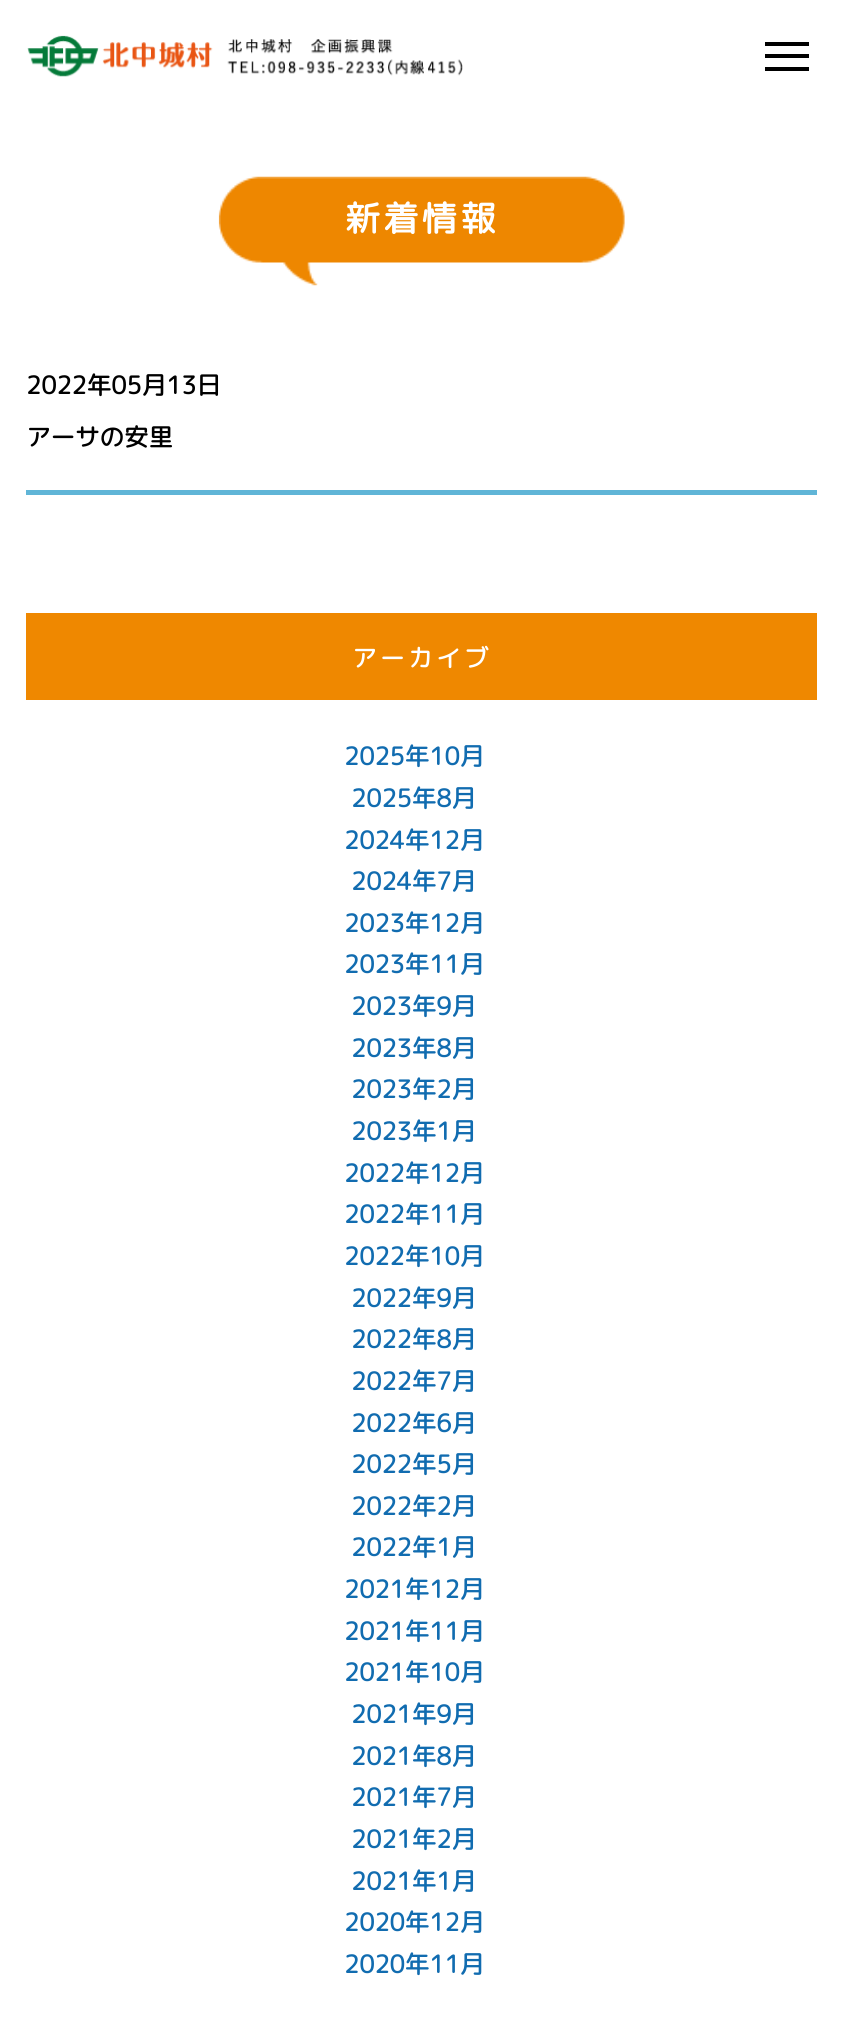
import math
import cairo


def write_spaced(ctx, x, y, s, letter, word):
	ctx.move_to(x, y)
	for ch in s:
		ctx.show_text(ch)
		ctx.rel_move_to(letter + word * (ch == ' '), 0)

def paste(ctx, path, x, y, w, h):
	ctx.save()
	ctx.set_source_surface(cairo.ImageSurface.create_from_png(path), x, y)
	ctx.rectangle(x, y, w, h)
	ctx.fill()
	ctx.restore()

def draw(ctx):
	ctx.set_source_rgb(1, 1, 1)
	ctx.paint()
	paste(ctx, 'media/1.png', 27, 35, 436, 42)
	ctx.set_source_rgb(0, 0, 0)
	ctx.rectangle(765, 54, 44, 4)
	ctx.rectangle(765, 42, 44, 4)
	ctx.rectangle(765, 67, 44, 4)
	ctx.fill()
	paste(ctx, 'media/2.png', 218, 176, 407, 110)
	ctx.select_font_face('Rounded Mplus 1c', cairo.FONT_SLANT_NORMAL, cairo.FONT_WEIGHT_BOLD)
	ctx.set_font_size(35)
	ctx.set_source_rgb(1, 1, 1)
	write_spaced(ctx, 345, 231, '新着情報', 3.5, 0)
	ctx.set_source_rgb(0.376, 0.71, 0.843)
	ctx.rectangle(26, 490, 791, 5)
	ctx.fill()
	ctx.set_font_size(24.5)
	ctx.set_source_rgb(0, 0, 0)
	ctx.move_to(26, 394)
	ctx.show_text('2022年05月13日')
	ctx.move_to(26, 446)
	ctx.show_text('アーサの安里')
	ctx.set_source_rgb(0.937, 0.533, 0)
	ctx.rectangle(26, 613, 791, 87)
	ctx.fill()
	ctx.set_source_rgb(1, 1, 1)
	write_spaced(ctx, 352, 667, 'アーカイブ', 3.5, 0)
	ctx.set_source_rgb(0.067, 0.424, 0.69)
	for x, y, s in [
		(344, 765, '2025年10月'),
		(351, 807, '2025年8月'),
		(344, 849, '2024年12月'),
		(351, 890, '2024年7月'),
		(344, 932, '2023年12月'),
		(344, 973, '2023年11月'),
		(351, 1015, '2023年9月'),
		(351, 1057, '2023年8月'),
		(351, 1098, '2023年2月'),
		(351, 1140, '2023年1月'),
		(344, 1182, '2022年12月'),
		(344, 1223, '2022年11月'),
		(344, 1265, '2022年10月'),
		(351, 1307, '2022年9月'),
		(351, 1348, '2022年8月'),
		(351, 1390, '2022年7月'),
		(351, 1432, '2022年6月'),
		(351, 1473, '2022年5月'),
		(351, 1515, '2022年2月'),
		(351, 1556, '2022年1月'),
		(344, 1598, '2021年12月'),
		(344, 1640, '2021年11月'),
		(344, 1681, '2021年10月'),
		(351, 1723, '2021年9月'),
		(351, 1765, '2021年8月'),
		(351, 1806, '2021年7月'),
		(351, 1848, '2021年2月'),
		(351, 1890, '2021年1月'),
		(344, 1931, '2020年12月'),
		(344, 1973, '2020年11月'),
	]:
		ctx.move_to(x, y)
		ctx.show_text(s)


surface = cairo.ImageSurface(cairo.FORMAT_RGB24, 843, 2018)
ctx = cairo.Context(surface)
options = cairo.FontOptions()
options.set_hint_metrics(cairo.HINT_METRICS_OFF)
options.set_hint_style(cairo.HINT_STYLE_NONE)
ctx.set_font_options(options)
ctx.set_miter_limit(4)
draw(ctx)
surface.write_to_png('image.png')
